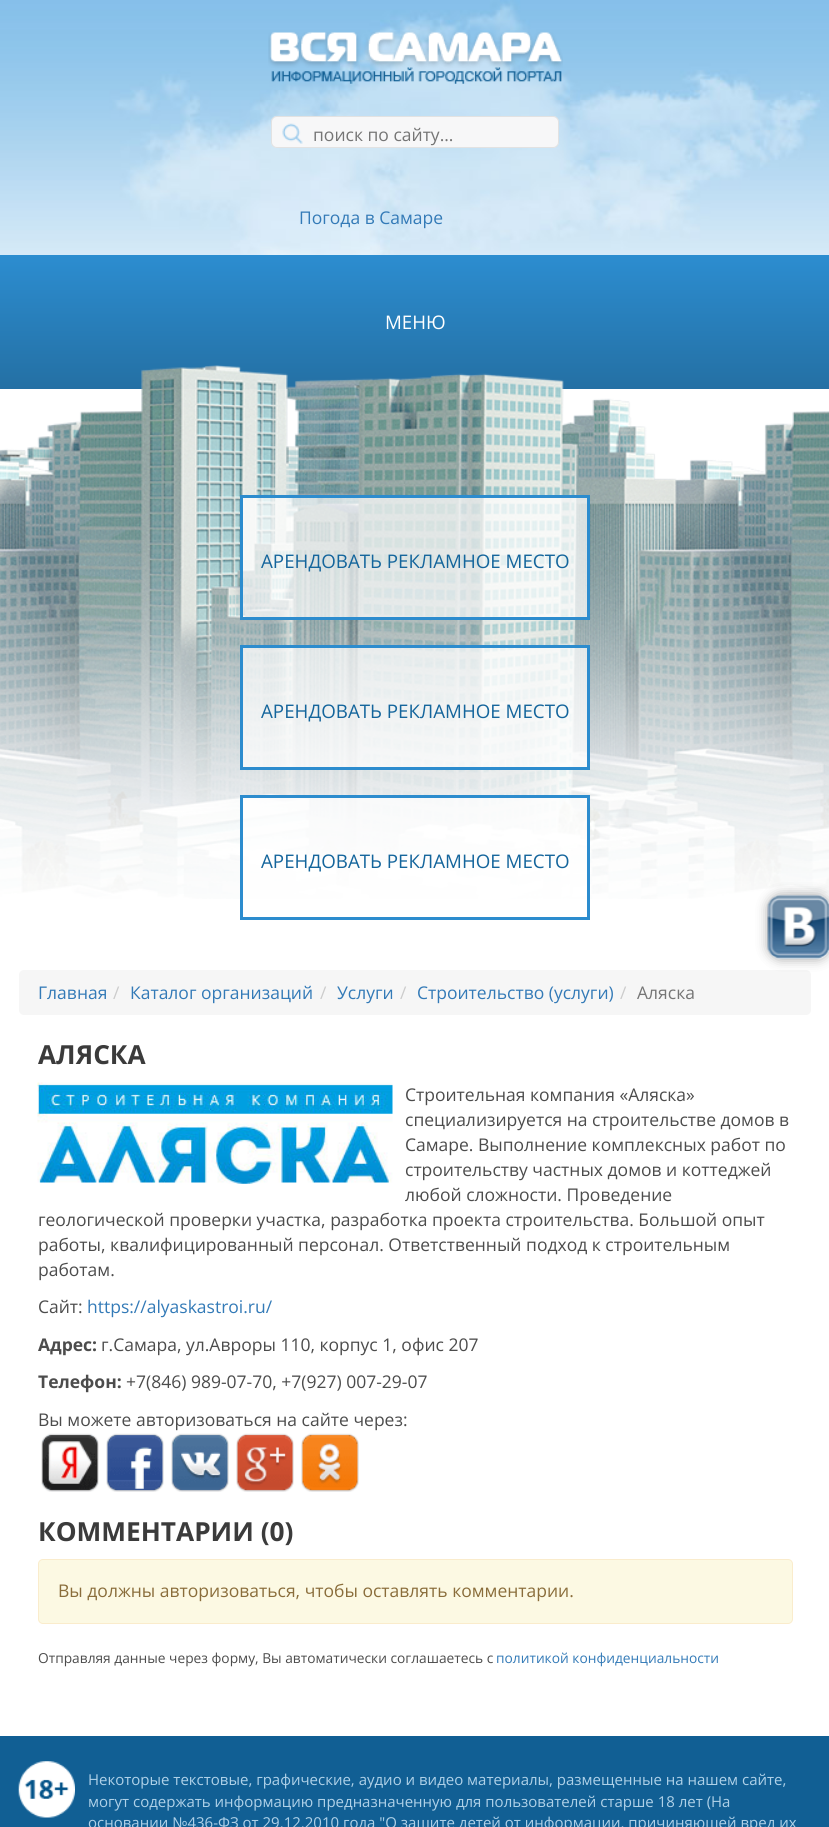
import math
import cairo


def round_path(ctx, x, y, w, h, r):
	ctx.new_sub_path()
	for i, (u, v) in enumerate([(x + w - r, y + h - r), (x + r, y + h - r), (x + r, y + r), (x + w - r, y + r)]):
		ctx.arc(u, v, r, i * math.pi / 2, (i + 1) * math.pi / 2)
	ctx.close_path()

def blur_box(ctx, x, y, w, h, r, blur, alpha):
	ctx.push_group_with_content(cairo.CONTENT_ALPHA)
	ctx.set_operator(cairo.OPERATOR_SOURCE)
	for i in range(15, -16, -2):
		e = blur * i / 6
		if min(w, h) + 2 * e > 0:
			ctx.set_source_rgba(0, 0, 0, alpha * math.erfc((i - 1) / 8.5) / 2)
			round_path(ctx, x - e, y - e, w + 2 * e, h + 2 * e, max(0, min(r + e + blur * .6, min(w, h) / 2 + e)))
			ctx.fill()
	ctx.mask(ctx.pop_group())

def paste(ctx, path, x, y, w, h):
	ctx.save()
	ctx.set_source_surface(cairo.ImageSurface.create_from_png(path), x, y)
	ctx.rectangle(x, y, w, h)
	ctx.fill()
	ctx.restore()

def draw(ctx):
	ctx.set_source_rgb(1, 1, 1)
	ctx.paint()
	paste(ctx, 'media/1.png', 0, 0, 829, 255)
	paste(ctx, 'media/2.png', 268, 32, 295, 52)
	ctx.set_source_rgb(0.965, 0.965, 0.969)
	round_path(ctx, 271, 116, 288, 32, 6)
	ctx.fill()
	round_path(ctx, 271.5, 116.5, 287, 31, 5.5)
	ctx.set_source_rgba(0.722, 0.722, 0.722, 0.33)
	ctx.set_line_width(1)
	ctx.stroke()
	paste(ctx, 'media/3.png', 282, 123, 21, 21)
	ctx.select_font_face('Open Sans')
	ctx.set_font_size(17.5)
	ctx.set_source_rgb(0.459, 0.459, 0.459)
	ctx.move_to(313, 141)
	ctx.show_text('поиск по сайту...')
	ctx.set_source_rgb(0.2, 0.478, 0.718)
	ctx.move_to(299, 224)
	ctx.show_text('Погода в Самаре')
	gradient = cairo.LinearGradient(415, 255, 415, 389)
	gradient.add_color_stop_rgba(0, 0.173, 0.553, 0.816, 1)
	gradient.add_color_stop_rgba(1, 0.141, 0.439, 0.643, 1)
	ctx.set_source(gradient)
	ctx.rectangle(0, 255, 829, 134)
	ctx.fill()
	ctx.set_font_size(18.75)
	ctx.set_source_rgb(1, 1, 1)
	ctx.move_to(385, 329)
	ctx.show_text('МЕНЮ')
	paste(ctx, 'media/4.png', 0, 365, 829, 534)
	ctx.set_source_rgba(1, 1, 1, 0.7)
	ctx.rectangle(241.5, 496.5, 347, 122)
	ctx.fill_preserve()
	ctx.set_source_rgb(0.173, 0.549, 0.808)
	ctx.set_line_width(3)
	ctx.stroke()
	ctx.set_source_rgb(0.082, 0.396, 0.612)
	ctx.move_to(261, 568)
	ctx.show_text('АРЕНДОВАТЬ РЕКЛАМНОЕ МЕСТО')
	ctx.set_source_rgba(1, 1, 1, 0.7)
	ctx.rectangle(241.5, 646.5, 347, 122)
	ctx.fill_preserve()
	ctx.set_source_rgb(0.173, 0.549, 0.808)
	ctx.stroke()
	ctx.set_source_rgb(0.082, 0.396, 0.612)
	ctx.move_to(261, 718)
	ctx.show_text('АРЕНДОВАТЬ РЕКЛАМНОЕ МЕСТО')
	ctx.set_source_rgba(1, 1, 1, 0.7)
	ctx.rectangle(243, 798, 344, 101)
	ctx.fill()
	ctx.rectangle(241.5, 796.5, 347, 122)
	ctx.set_source_rgb(0.173, 0.549, 0.808)
	ctx.stroke()
	ctx.set_source_rgb(0.082, 0.396, 0.612)
	ctx.move_to(261, 868)
	ctx.show_text('АРЕНДОВАТЬ РЕКЛАМНОЕ МЕСТО')
	ctx.set_source_rgb(0.961, 0.961, 0.961)
	round_path(ctx, 19, 970, 792, 45, 5)
	ctx.fill()
	ctx.set_font_size(17.5)
	ctx.set_source_rgb(0.2, 0.478, 0.718)
	ctx.move_to(38, 999)
	ctx.show_text('Главная')
	ctx.set_source_rgb(0.8, 0.8, 0.8)
	ctx.move_to(113, 999)
	ctx.show_text('/')
	ctx.set_source_rgb(0.2, 0.478, 0.718)
	ctx.move_to(130, 999)
	ctx.show_text('Каталог организаций')
	ctx.set_source_rgb(0.8, 0.8, 0.8)
	ctx.move_to(320, 999)
	ctx.show_text('/')
	ctx.set_source_rgb(0.2, 0.478, 0.718)
	ctx.move_to(337, 999)
	ctx.show_text('Услуги')
	ctx.set_source_rgb(0.8, 0.8, 0.8)
	ctx.move_to(400, 999)
	ctx.show_text('/')
	ctx.set_source_rgb(0.2, 0.478, 0.718)
	ctx.move_to(417, 999)
	ctx.show_text('Строительство (услуги)')
	ctx.set_source_rgb(0.8, 0.8, 0.8)
	ctx.move_to(620, 999)
	ctx.show_text('/')
	ctx.set_source_rgb(0.459, 0.459, 0.459)
	ctx.move_to(637, 999)
	ctx.show_text('Аляска')
	ctx.select_font_face('Open Sans', cairo.FONT_SLANT_NORMAL, cairo.FONT_WEIGHT_BOLD)
	ctx.set_font_size(26.25)
	ctx.set_source_rgb(0.231, 0.231, 0.231)
	ctx.move_to(38, 1064)
	ctx.show_text('АЛЯСКА')
	paste(ctx, 'media/5.png', 37, 1082, 356, 102)
	ctx.select_font_face('Open Sans')
	ctx.set_font_size(17.5)
	ctx.set_source_rgb(0.298, 0.298, 0.298)
	for x, y, s in [
		(405, 1101, 'Строительная компания «Аляска»'),
		(405, 1126, 'специализируется на строительстве домов в'),
		(405, 1151, 'Самаре. Выполнение комплексных работ по'),
		(405, 1176, 'строительству частных домов и коттеджей'),
		(405, 1201, 'любой сложности. Проведение'),
		(38, 1226, 'геологической проверки участка, разработка проекта строительства. Большой опыт'),
		(38, 1251, 'работы, квалифицированный персонал. Ответственный подход к строительным'),
		(38, 1276, 'работам.'),
		(38, 1313, 'Сайт:'),
	]:
		ctx.move_to(x, y)
		ctx.show_text(s)
	ctx.set_source_rgb(0.2, 0.478, 0.718)
	ctx.move_to(87, 1313)
	ctx.show_text('https://alyaskastroi.ru/')
	ctx.select_font_face('Open Sans', cairo.FONT_SLANT_NORMAL, cairo.FONT_WEIGHT_BOLD)
	ctx.set_source_rgb(0.298, 0.298, 0.298)
	ctx.move_to(38, 1351)
	ctx.show_text('Адрес:')
	ctx.select_font_face('Open Sans')
	ctx.move_to(101, 1351)
	ctx.show_text('г.Самара, ул.Авроры 110, корпус 1, офис 207')
	ctx.select_font_face('Open Sans', cairo.FONT_SLANT_NORMAL, cairo.FONT_WEIGHT_BOLD)
	ctx.move_to(38, 1388)
	ctx.show_text('Телефон:')
	ctx.select_font_face('Open Sans')
	ctx.move_to(126, 1388)
	ctx.show_text('+7(846) 989-07-70, +7(927) 007-29-07')
	ctx.move_to(38, 1426)
	ctx.show_text('Вы можете авторизоваться на сайте через:')
	paste(ctx, 'media/6.png', 41, 1433, 58, 59)
	paste(ctx, 'media/7.png', 106, 1433, 58, 59)
	paste(ctx, 'media/8.png', 171, 1433, 58, 59)
	paste(ctx, 'media/9.png', 236, 1433, 58, 59)
	paste(ctx, 'media/10.png', 301, 1433, 58, 59)
	ctx.select_font_face('Open Sans', cairo.FONT_SLANT_NORMAL, cairo.FONT_WEIGHT_BOLD)
	ctx.set_font_size(26.25)
	ctx.set_source_rgb(0.231, 0.231, 0.231)
	ctx.move_to(38, 1541)
	ctx.show_text('КОММЕНТАРИИ (0)')
	ctx.set_source_rgb(0.988, 0.973, 0.89)
	round_path(ctx, 38.5, 1559.5, 754, 64, 4.5)
	ctx.fill_preserve()
	ctx.set_source_rgb(0.98, 0.922, 0.8)
	ctx.set_line_width(1)
	ctx.stroke()
	ctx.select_font_face('Open Sans')
	ctx.set_font_size(17.5)
	ctx.set_source_rgb(0.541, 0.427, 0.231)
	ctx.move_to(58, 1597)
	ctx.show_text('Вы должны авторизоваться, чтобы оставлять комментарии.')
	ctx.set_font_size(13.75)
	ctx.set_source_rgb(0.298, 0.298, 0.298)
	ctx.move_to(38, 1663)
	ctx.show_text('Отправляя данные через форму, Вы автоматически соглашаетесь с')
	ctx.set_source_rgb(0.2, 0.478, 0.718)
	ctx.move_to(496, 1663)
	ctx.show_text('политикой конфиденциальности')
	ctx.save()
	ctx.set_fill_rule(cairo.FILL_RULE_EVEN_ODD)
	ctx.new_path()
	ctx.move_to(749, 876)
	ctx.line_to(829, 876)
	ctx.line_to(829, 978)
	ctx.line_to(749, 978)
	ctx.close_path()
	ctx.move_to(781, 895)
	ctx.line_to(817, 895)
	ctx.curve_to(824, 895, 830, 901, 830, 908)
	ctx.line_to(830, 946)
	ctx.curve_to(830, 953, 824, 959, 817, 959)
	ctx.line_to(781, 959)
	ctx.curve_to(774, 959, 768, 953, 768, 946)
	ctx.line_to(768, 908)
	ctx.curve_to(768, 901, 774, 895, 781, 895)
	ctx.close_path()
	ctx.clip()
	ctx.set_source_rgb(0, 0, 0)
	blur_box(ctx, 768, 895, 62, 64, 13, 6, 0.35)
	ctx.restore()
	paste(ctx, 'media/11.png', 767, 895, 62, 64)
	ctx.set_source_rgb(0.067, 0.373, 0.58)
	ctx.rectangle(0, 1736, 829, 91)
	ctx.fill()
	paste(ctx, 'media/12.png', 18, 1761, 57, 57)
	ctx.set_font_size(15)
	ctx.set_source_rgb(0.686, 0.82, 0.91)
	for x, y, s in [
		(88, 1785, 'Некоторые текстовые, графические, аудио и видео материалы, размещенные на нашем сайте,'),
		(88, 1807, 'могут содержать информацию предназначенную для пользователей старше 18 лет (На'),
		(88, 1828, 'основании №436-ФЗ от 29.12.2010 года "О защите детей от информации, причиняющей вред их'),
	]:
		ctx.move_to(x, y)
		ctx.show_text(s)


surface = cairo.ImageSurface(cairo.FORMAT_RGB24, 829, 1827)
ctx = cairo.Context(surface)
options = cairo.FontOptions()
options.set_hint_metrics(cairo.HINT_METRICS_OFF)
options.set_hint_style(cairo.HINT_STYLE_NONE)
ctx.set_font_options(options)
ctx.set_miter_limit(4)
draw(ctx)
surface.write_to_png('image.png')
